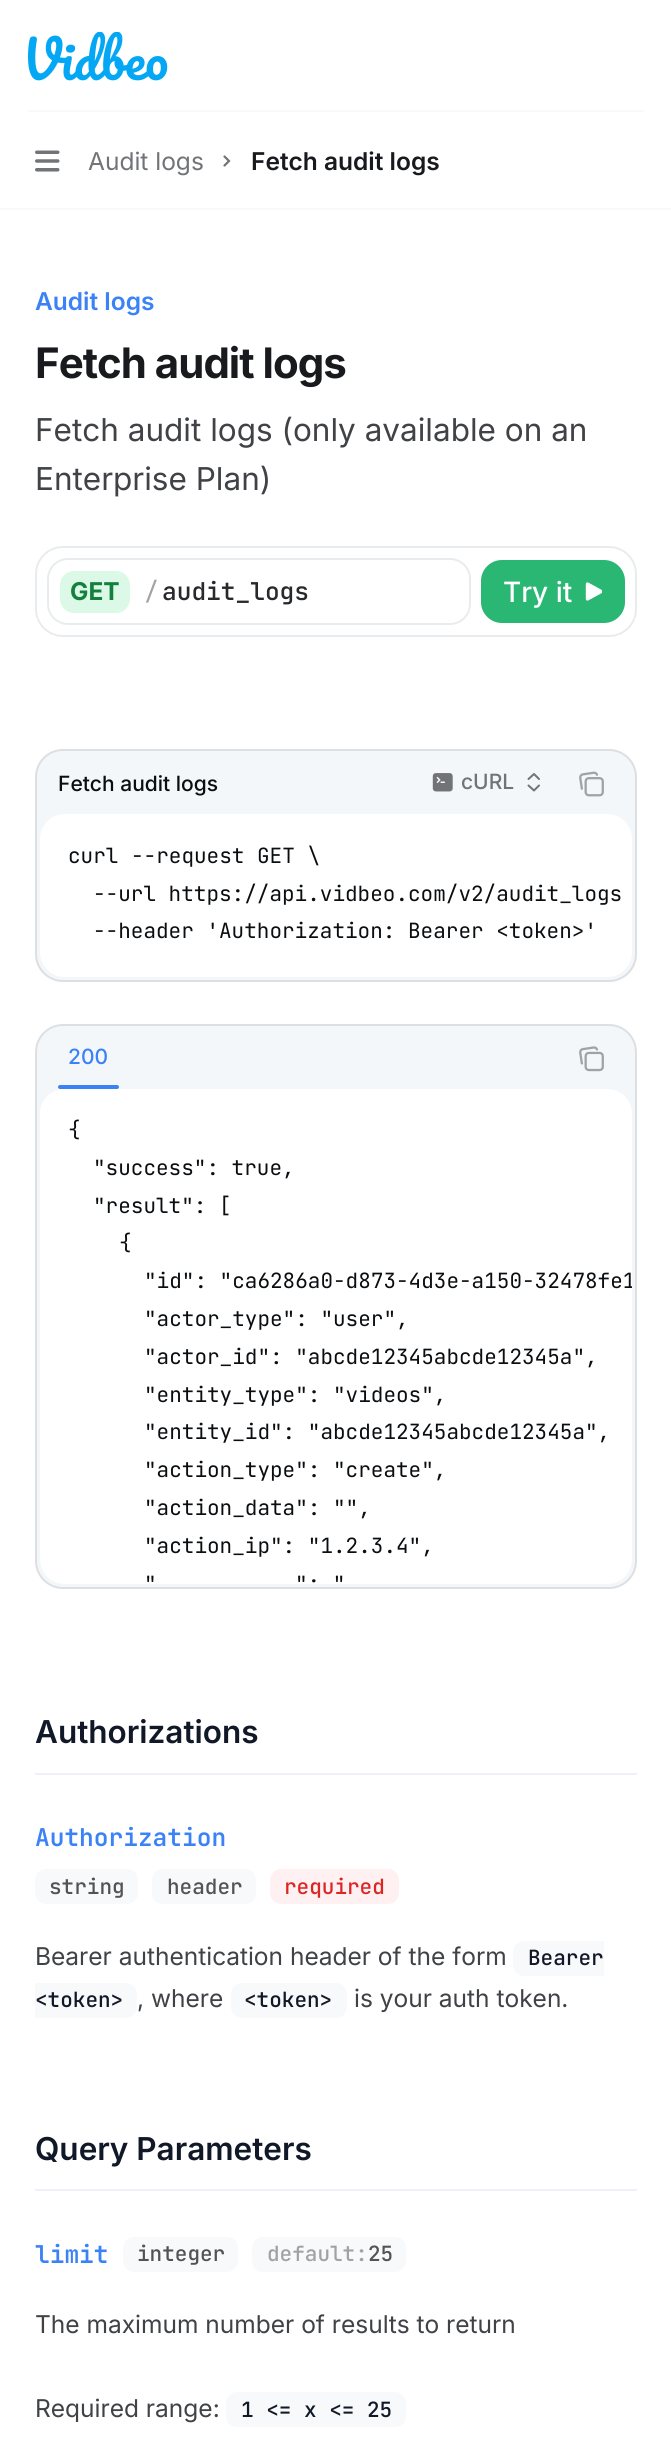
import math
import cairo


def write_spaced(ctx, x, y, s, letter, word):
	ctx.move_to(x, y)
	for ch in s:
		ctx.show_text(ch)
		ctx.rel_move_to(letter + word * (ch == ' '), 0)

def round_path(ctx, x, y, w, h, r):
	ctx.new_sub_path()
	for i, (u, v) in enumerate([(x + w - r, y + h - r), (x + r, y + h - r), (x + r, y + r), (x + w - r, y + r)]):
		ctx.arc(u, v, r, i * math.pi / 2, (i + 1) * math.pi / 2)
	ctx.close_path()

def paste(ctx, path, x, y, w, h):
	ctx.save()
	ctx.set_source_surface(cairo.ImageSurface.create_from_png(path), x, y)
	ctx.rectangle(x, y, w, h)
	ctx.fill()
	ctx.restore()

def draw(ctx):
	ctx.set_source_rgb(1, 1, 1)
	ctx.paint()
	ctx.set_source_rgb(0.973, 0.973, 0.973)
	ctx.rectangle(28, 110, 616, 2)
	ctx.fill()
	paste(ctx, 'media/1.png', 28, 32, 140, 49)
	paste(ctx, 'media/2.png', 35, 150, 25, 22)
	ctx.select_font_face('Inter')
	ctx.set_font_size(24.5)
	ctx.set_source_rgb(0.443, 0.451, 0.467)
	ctx.move_to(88, 170)
	ctx.show_text('Audit logs')
	ctx.new_path()
	ctx.move_to(224.5, 156.5)
	ctx.line_to(229, 161)
	ctx.line_to(224.5, 165.5)
	ctx.set_line_width(2.2)
	ctx.set_line_cap(cairo.LINE_CAP_ROUND)
	ctx.stroke()
	ctx.select_font_face('Inter SemiBold')
	ctx.set_source_rgb(0.094, 0.102, 0.118)
	ctx.move_to(251, 170)
	ctx.show_text('Fetch audit logs')
	ctx.set_source_rgb(0.973, 0.973, 0.973)
	ctx.rectangle(0, 208, 671, 2)
	ctx.fill()
	ctx.set_source_rgb(0.231, 0.51, 0.965)
	ctx.move_to(35, 310)
	ctx.show_text('Audit logs')
	ctx.select_font_face('Inter', cairo.FONT_SLANT_NORMAL, cairo.FONT_WEIGHT_BOLD)
	ctx.set_font_size(42)
	ctx.set_source_rgb(0.094, 0.102, 0.118)
	write_spaced(ctx, 35, 378, 'Fetch audit logs', -1, 0)
	ctx.select_font_face('Inter')
	ctx.set_font_size(31.5)
	ctx.set_source_rgb(0.251, 0.259, 0.275)
	ctx.move_to(35, 441)
	ctx.show_text('Fetch audit logs (only available on an')
	ctx.move_to(35, 490)
	ctx.show_text('Enterprise Plan)')
	round_path(ctx, 36, 547, 600, 89, 27)
	ctx.set_source_rgb(0.914, 0.922, 0.933)
	ctx.set_line_width(2)
	ctx.set_line_cap(cairo.LINE_CAP_BUTT)
	ctx.stroke()
	round_path(ctx, 48, 559, 422, 65, 20)
	ctx.stroke()
	ctx.set_source_rgb(0.859, 0.973, 0.902)
	round_path(ctx, 60, 571, 70, 42, 14)
	ctx.fill()
	ctx.select_font_face('Inter', cairo.FONT_SLANT_NORMAL, cairo.FONT_WEIGHT_BOLD)
	ctx.set_font_size(24.5)
	ctx.set_source_rgb(0.082, 0.502, 0.239)
	ctx.move_to(70, 600)
	ctx.show_text('GET')
	ctx.select_font_face('JetBrains Mono')
	ctx.set_source_rgb(0.627, 0.635, 0.651)
	ctx.move_to(144, 600)
	ctx.show_text('/')
	ctx.select_font_face('JetBrains Mono Medium')
	ctx.set_source_rgb(0.153, 0.161, 0.173)
	ctx.move_to(162, 600)
	ctx.show_text('audit_logs')
	ctx.set_source_rgb(0.165, 0.714, 0.451)
	round_path(ctx, 481, 560, 144, 63, 21)
	ctx.fill()
	ctx.select_font_face('Inter Medium')
	ctx.set_font_size(28)
	ctx.set_source_rgb(1, 1, 1)
	ctx.move_to(503, 602)
	ctx.show_text('Try it')
	paste(ctx, 'media/3.png', 585, 582, 17, 19)
	ctx.set_source_rgb(0.957, 0.965, 0.98)
	round_path(ctx, 35, 749, 602, 233, 28)
	ctx.fill()
	round_path(ctx, 36, 750, 600, 231, 27)
	ctx.set_source_rgba(0.043, 0.055, 0.067, 0.1)
	ctx.stroke()
	ctx.set_font_size(21)
	ctx.set_source_rgb(0.043, 0.055, 0.067)
	ctx.move_to(58, 791)
	ctx.show_text('Fetch audit logs')
	paste(ctx, 'media/4.png', 432, 773, 21, 19)
	ctx.set_source_rgb(0.443, 0.451, 0.467)
	ctx.move_to(461, 789)
	ctx.show_text('cURL')
	ctx.new_path()
	ctx.move_to(528.5, 785.5)
	ctx.line_to(534, 790.5)
	ctx.line_to(539, 785.5)
	ctx.move_to(528.5, 779)
	ctx.line_to(534, 774)
	ctx.line_to(539, 779)
	ctx.set_line_cap(cairo.LINE_CAP_ROUND)
	ctx.set_line_join(cairo.LINE_JOIN_ROUND)
	ctx.stroke()
	paste(ctx, 'media/5.png', 579, 771, 25, 26)
	ctx.set_source_rgb(1, 1, 1)
	round_path(ctx, 40, 814, 592, 163, 25)
	ctx.fill()
	ctx.select_font_face('JetBrains Mono')
	ctx.set_source_rgb(0.043, 0.055, 0.067)
	for x, y, s in [
		(68, 863, 'curl --request GET \\'),
		(93, 901, '--url https://api.vidbeo.com/v2/audit_logs'),
		(93, 938, '--header \'Authorization: Bearer <token>\''),
	]:
		ctx.move_to(x, y)
		ctx.show_text(s)
	ctx.set_source_rgb(0.957, 0.965, 0.98)
	round_path(ctx, 35, 1024, 602, 565, 28)
	ctx.fill()
	round_path(ctx, 36, 1025, 600, 563, 27)
	ctx.set_source_rgba(0.043, 0.055, 0.067, 0.1)
	ctx.set_line_cap(cairo.LINE_CAP_BUTT)
	ctx.set_line_join(cairo.LINE_JOIN_MITER)
	ctx.stroke()
	ctx.select_font_face('Inter Medium')
	ctx.set_source_rgb(0.231, 0.51, 0.965)
	ctx.move_to(68, 1064)
	ctx.show_text('200')
	round_path(ctx, 58, 1085, 61, 4, 2)
	ctx.fill()
	paste(ctx, 'media/6.png', 579, 1046, 25, 26)
	ctx.set_source_rgb(1, 1, 1)
	round_path(ctx, 40, 1089, 592, 495, 25)
	ctx.fill()
	ctx.select_font_face('JetBrains Mono')
	ctx.set_source_rgb(0.043, 0.055, 0.067)
	for x, y, s in [
		(68, 1137, '{'),
		(93, 1175, '"success": true,'),
		(93, 1213, '"result": ['),
		(119, 1250, '{'),
	]:
		ctx.move_to(x, y)
		ctx.show_text(s)
	ctx.save()
	round_path(ctx, 40, 1089, 592, 495, 25)
	ctx.clip()
	ctx.move_to(144, 1288)
	ctx.show_text('"id": "ca6286a0-d873-4d3e-a150-32478fe1')
	ctx.restore()
	for x, y, s in [
		(144, 1326, '"actor_type": "user",'),
		(144, 1364, '"actor_id": "abcde12345abcde12345a",'),
		(144, 1402, '"entity_type": "videos",'),
		(144, 1439, '"entity_id": "abcde12345abcde12345a",'),
		(144, 1477, '"action_type": "create",'),
		(144, 1515, '"action_data": "",'),
		(144, 1553, '"action_ip": "1.2.3.4",'),
		(144, 1591, '"'),
	]:
		ctx.move_to(x, y)
		ctx.show_text(s)
	ctx.save()
	round_path(ctx, 40, 1089, 592, 495, 25)
	ctx.clip()
	ctx.move_to(295, 1591)
	ctx.show_text('": "')
	ctx.restore()
	ctx.set_source_rgb(0.937, 0.945, 0.961)
	ctx.rectangle(35, 1773, 602, 2)
	ctx.fill()
	ctx.select_font_face('Inter SemiBold')
	ctx.set_font_size(31.5)
	ctx.set_source_rgb(0.067, 0.094, 0.153)
	ctx.move_to(35, 1743)
	ctx.show_text('Authorizations')
	ctx.select_font_face('JetBrains Mono SemiBold')
	ctx.set_font_size(24.5)
	ctx.set_source_rgb(0.231, 0.51, 0.965)
	ctx.move_to(35, 1846)
	ctx.show_text('Authorization')
	ctx.set_source_rgb(0.969, 0.973, 0.98)
	round_path(ctx, 35, 1869, 103, 35, 11)
	ctx.fill()
	ctx.select_font_face('JetBrains Mono Medium')
	ctx.set_font_size(21)
	ctx.set_source_rgb(0.318, 0.325, 0.341)
	ctx.move_to(49, 1894)
	ctx.show_text('string')
	ctx.set_source_rgb(0.969, 0.973, 0.98)
	round_path(ctx, 152, 1869, 104, 35, 11)
	ctx.fill()
	ctx.set_source_rgb(0.318, 0.325, 0.341)
	ctx.move_to(167, 1894)
	ctx.show_text('header')
	ctx.set_source_rgb(1, 0.945, 0.945)
	round_path(ctx, 270, 1869, 129, 35, 11)
	ctx.fill()
	ctx.set_source_rgb(0.863, 0.149, 0.149)
	ctx.move_to(284, 1894)
	ctx.show_text('required')
	ctx.select_font_face('Inter')
	ctx.set_font_size(24.5)
	ctx.set_source_rgb(0.251, 0.259, 0.275)
	ctx.move_to(35, 1965)
	ctx.show_text('Bearer authentication header of the form')
	ctx.set_source_rgb(0.969, 0.973, 0.98)
	ctx.new_path()
	ctx.move_to(524, 1941)
	ctx.line_to(604, 1941)
	ctx.line_to(604, 1976)
	ctx.line_to(524, 1976)
	ctx.curve_to(518, 1976, 513, 1971, 513, 1965)
	ctx.line_to(513, 1952)
	ctx.curve_to(513, 1946, 518, 1941, 524, 1941)
	ctx.close_path()
	ctx.fill()
	ctx.select_font_face('JetBrains Mono Medium')
	ctx.set_font_size(21)
	ctx.set_source_rgb(0.067, 0.094, 0.153)
	ctx.move_to(528, 1965)
	ctx.show_text('Bearer')
	ctx.set_source_rgb(0.969, 0.973, 0.98)
	ctx.new_path()
	ctx.move_to(35, 1983)
	ctx.line_to(126, 1983)
	ctx.curve_to(132, 1983, 137, 1988, 137, 1994)
	ctx.line_to(137, 2007)
	ctx.curve_to(137, 2013, 132, 2018, 126, 2018)
	ctx.line_to(35, 2018)
	ctx.close_path()
	ctx.fill()
	ctx.set_source_rgb(0.067, 0.094, 0.153)
	ctx.move_to(35, 2007)
	ctx.show_text('<token>')
	ctx.select_font_face('Inter')
	ctx.set_font_size(24.5)
	ctx.set_source_rgb(0.251, 0.259, 0.275)
	ctx.move_to(137, 2007)
	ctx.show_text(', where')
	ctx.set_source_rgb(0.969, 0.973, 0.98)
	round_path(ctx, 231, 1983, 116, 35, 11)
	ctx.fill()
	ctx.select_font_face('JetBrains Mono Medium')
	ctx.set_font_size(21)
	ctx.set_source_rgb(0.067, 0.094, 0.153)
	ctx.move_to(244, 2007)
	ctx.show_text('<token>')
	ctx.select_font_face('Inter')
	ctx.set_font_size(24.5)
	ctx.set_source_rgb(0.251, 0.259, 0.275)
	ctx.move_to(354, 2007)
	ctx.show_text('is your auth token.')
	ctx.set_source_rgb(0.937, 0.945, 0.961)
	ctx.rectangle(35, 2189, 602, 2)
	ctx.fill()
	ctx.select_font_face('Inter SemiBold')
	ctx.set_font_size(31.5)
	ctx.set_source_rgb(0.067, 0.094, 0.153)
	ctx.move_to(35, 2160)
	ctx.show_text('Query Parameters')
	ctx.select_font_face('JetBrains Mono SemiBold')
	ctx.set_font_size(24.5)
	ctx.set_source_rgb(0.231, 0.51, 0.965)
	ctx.move_to(35, 2263)
	ctx.show_text('limit')
	ctx.set_source_rgb(0.969, 0.973, 0.98)
	round_path(ctx, 123, 2237, 115, 35, 11)
	ctx.fill()
	ctx.select_font_face('JetBrains Mono Medium')
	ctx.set_font_size(21)
	ctx.set_source_rgb(0.318, 0.325, 0.341)
	ctx.move_to(137, 2261)
	ctx.show_text('integer')
	ctx.set_source_rgb(0.969, 0.973, 0.98)
	ctx.new_path()
	ctx.move_to(263, 2237)
	ctx.line_to(368, 2237)
	ctx.line_to(368, 2272)
	ctx.line_to(263, 2272)
	ctx.curve_to(257, 2272, 252, 2267, 252, 2261)
	ctx.line_to(252, 2248)
	ctx.curve_to(252, 2242, 257, 2237, 263, 2237)
	ctx.close_path()
	ctx.fill()
	ctx.set_source_rgb(0.627, 0.635, 0.651)
	ctx.move_to(267, 2261)
	ctx.show_text('default:')
	ctx.set_source_rgb(0.969, 0.973, 0.98)
	ctx.new_path()
	ctx.move_to(368, 2237)
	ctx.line_to(395, 2237)
	ctx.curve_to(401, 2237, 406, 2242, 406, 2248)
	ctx.line_to(406, 2261)
	ctx.curve_to(406, 2267, 401, 2272, 395, 2272)
	ctx.line_to(368, 2272)
	ctx.close_path()
	ctx.fill()
	ctx.set_source_rgb(0.318, 0.325, 0.341)
	ctx.move_to(368, 2261)
	ctx.show_text('25')
	ctx.select_font_face('Inter')
	ctx.set_font_size(24.5)
	ctx.set_source_rgb(0.251, 0.259, 0.275)
	ctx.move_to(35, 2333)
	ctx.show_text('The maximum number of results to return')
	ctx.move_to(35, 2417)
	ctx.show_text('Required range:')
	ctx.set_source_rgb(0.969, 0.973, 0.98)
	round_path(ctx, 226, 2392, 180, 35, 11)
	ctx.fill()
	ctx.select_font_face('JetBrains Mono Medium')
	ctx.set_font_size(21)
	ctx.set_source_rgb(0.067, 0.094, 0.153)
	ctx.move_to(241, 2417)
	ctx.show_text('1 <= x <= 25')


surface = cairo.ImageSurface(cairo.FORMAT_RGB24, 671, 2460)
ctx = cairo.Context(surface)
options = cairo.FontOptions()
options.set_hint_metrics(cairo.HINT_METRICS_OFF)
options.set_hint_style(cairo.HINT_STYLE_NONE)
ctx.set_font_options(options)
ctx.set_miter_limit(4)
draw(ctx)
surface.write_to_png('image.png')
